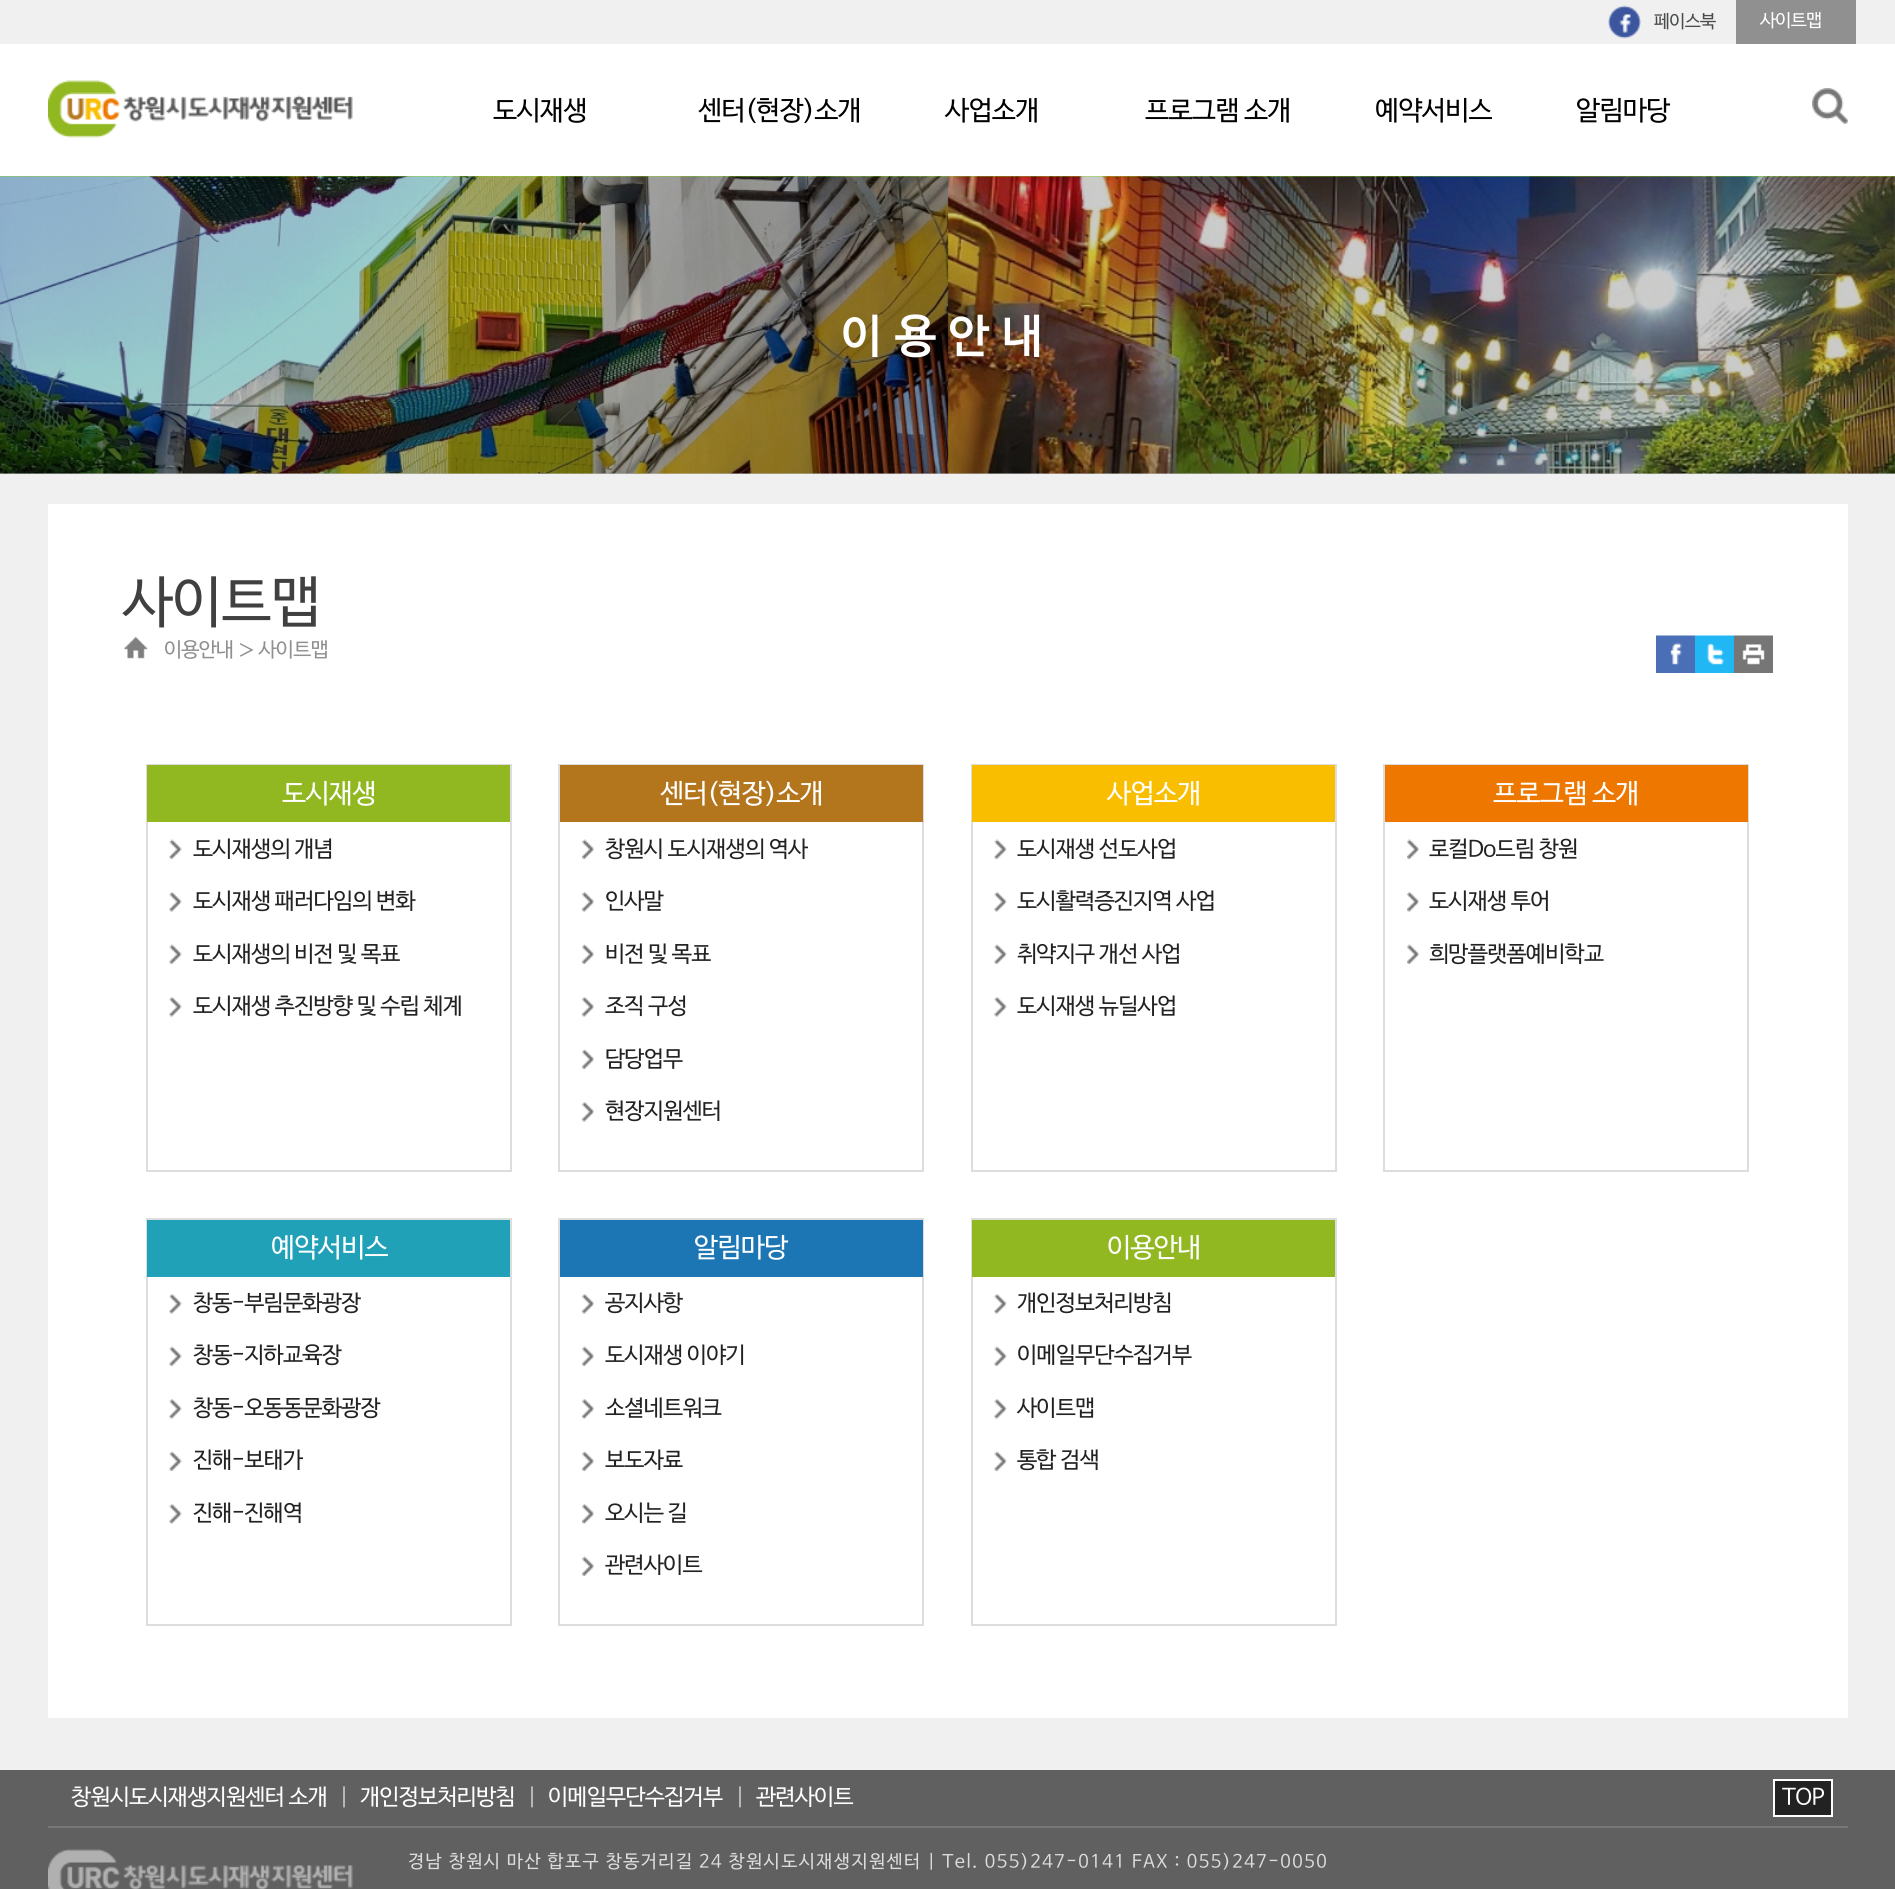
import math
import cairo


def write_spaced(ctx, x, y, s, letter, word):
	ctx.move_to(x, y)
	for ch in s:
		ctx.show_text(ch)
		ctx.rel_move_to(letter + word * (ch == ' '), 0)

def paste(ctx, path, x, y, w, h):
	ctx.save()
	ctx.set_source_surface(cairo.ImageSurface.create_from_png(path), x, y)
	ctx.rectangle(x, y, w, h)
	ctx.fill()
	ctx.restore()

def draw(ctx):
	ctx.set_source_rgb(1, 1, 1)
	ctx.paint()
	ctx.set_source_rgb(0.384, 0.624, 0.063)
	ctx.rectangle(0, 176, 1895, 1)
	ctx.fill()
	ctx.set_source_rgb(0.941, 0.941, 0.941)
	ctx.rectangle(0, 0, 1895, 44)
	ctx.fill()
	paste(ctx, 'media/1.png', 1608, 5, 33, 34)
	ctx.select_font_face('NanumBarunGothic')
	ctx.set_font_size(18)
	ctx.set_source_rgb(0.286, 0.294, 0.298)
	write_spaced(ctx, 1654, 27, '페이스북', -0.7, 0)
	ctx.set_source_rgb(0.565, 0.565, 0.565)
	ctx.rectangle(1736, 0, 120, 44)
	ctx.fill()
	ctx.set_source_rgb(1, 1, 1)
	write_spaced(ctx, 1760, 26, '사이트맵', -0.7, 0)
	paste(ctx, 'media/2.png', 48, 80, 305, 58)
	ctx.set_font_size(27)
	ctx.set_source_rgb(0, 0, 0)
	for x, y, s in [
		(493, 119, '도시재생'),
		(698, 119, '센터(현장)소개'),
		(945, 119, '사업소개'),
		(1145, 119, '프로그램 소개'),
		(1375, 119, '예약서비스'),
		(1576, 119, '알림마당'),
	]:
		write_spaced(ctx, x, y, s, -0.7, 0)
	paste(ctx, 'media/3.png', 1812, 88, 36, 36)
	ctx.set_source_rgb(0.753, 0.753, 0.753)
	ctx.rectangle(0, 473, 1895, 1)
	ctx.fill()
	paste(ctx, 'media/4.png', 0, 176, 1895, 298)
	ctx.select_font_face('NanumBarunGothic', cairo.FONT_SLANT_NORMAL, cairo.FONT_WEIGHT_BOLD)
	ctx.set_font_size(45)
	ctx.set_source_rgb(1, 1, 1)
	write_spaced(ctx, 841, 351, '이용안내', 13.5, 0)
	ctx.set_source_rgb(0.941, 0.941, 0.941)
	ctx.rectangle(0, 474, 1895, 1296)
	ctx.fill()
	ctx.set_source_rgb(1, 1, 1)
	ctx.rectangle(48, 504, 1800, 1214)
	ctx.fill()
	ctx.select_font_face('NanumBarunGothic')
	ctx.set_font_size(56)
	ctx.set_source_rgb(0.251, 0.251, 0.251)
	write_spaced(ctx, 123, 620, '사이트맵', -0.7, 0)
	paste(ctx, 'media/5.png', 124, 636, 24, 23)
	ctx.set_font_size(20.25)
	ctx.set_source_rgb(0.565, 0.565, 0.565)
	write_spaced(ctx, 164, 656, '이용안내 ＞ 사이트맵', -0.7, 0)
	paste(ctx, 'media/6.png', 1656, 635, 39, 38)
	paste(ctx, 'media/7.png', 1695, 635, 39, 38)
	paste(ctx, 'media/8.png', 1734, 635, 39, 38)
	ctx.rectangle(147, 765, 364, 406)
	ctx.set_source_rgb(0.867, 0.867, 0.867)
	ctx.stroke()
	ctx.set_source_rgb(0.569, 0.722, 0.129)
	ctx.rectangle(147, 765, 363, 57)
	ctx.fill()
	ctx.set_font_size(27)
	ctx.set_source_rgb(1, 1, 1)
	write_spaced(ctx, 282, 802, '도시재생', -0.7, 0)
	paste(ctx, 'media/9.png', 169, 839, 13, 20)
	ctx.set_font_size(22.5)
	ctx.set_source_rgb(0.133, 0.133, 0.133)
	write_spaced(ctx, 193, 856, '도시재생의 개념', -0.7, 0)
	paste(ctx, 'media/10.png', 169, 892, 13, 20)
	write_spaced(ctx, 193, 908, '도시재생 패러다임의 변화', -0.7, 0)
	paste(ctx, 'media/9.png', 169, 944, 13, 20)
	write_spaced(ctx, 193, 961, '도시재생의 비전 및 목표', -0.7, 0)
	paste(ctx, 'media/10.png', 169, 997, 13, 20)
	write_spaced(ctx, 193, 1013, '도시재생 추진방향 및 수립 체계', -0.7, 0)
	ctx.rectangle(559, 765, 364, 406)
	ctx.set_source_rgb(0.867, 0.867, 0.867)
	ctx.stroke()
	ctx.set_source_rgb(0.706, 0.463, 0.114)
	ctx.rectangle(560, 765, 363, 57)
	ctx.fill()
	ctx.set_font_size(27)
	ctx.set_source_rgb(1, 1, 1)
	write_spaced(ctx, 660, 802, '센터(현장)소개', -0.7, 0)
	paste(ctx, 'media/11.png', 582, 839, 12, 20)
	ctx.set_font_size(22.5)
	ctx.set_source_rgb(0.133, 0.133, 0.133)
	write_spaced(ctx, 605, 856, '창원시 도시재생의 역사', -0.7, 0)
	paste(ctx, 'media/12.png', 582, 892, 12, 20)
	write_spaced(ctx, 605, 908, '인사말', -0.7, 0)
	paste(ctx, 'media/11.png', 582, 944, 12, 20)
	write_spaced(ctx, 605, 961, '비전 및 목표', -0.7, 0)
	paste(ctx, 'media/12.png', 582, 997, 12, 20)
	write_spaced(ctx, 605, 1013, '조직 구성', -0.7, 0)
	paste(ctx, 'media/11.png', 582, 1049, 12, 20)
	write_spaced(ctx, 605, 1066, '담당업무', -0.7, 0)
	paste(ctx, 'media/12.png', 582, 1102, 12, 20)
	write_spaced(ctx, 605, 1118, '현장지원센터', -0.7, 0)
	ctx.rectangle(972, 765, 364, 406)
	ctx.set_source_rgb(0.867, 0.867, 0.867)
	ctx.stroke()
	ctx.set_source_rgb(0.98, 0.745, 0)
	ctx.rectangle(972, 765, 363, 57)
	ctx.fill()
	ctx.set_font_size(27)
	ctx.set_source_rgb(1, 1, 1)
	write_spaced(ctx, 1107, 802, '사업소개', -0.7, 0)
	paste(ctx, 'media/9.png', 994, 839, 13, 20)
	ctx.set_font_size(22.5)
	ctx.set_source_rgb(0.133, 0.133, 0.133)
	write_spaced(ctx, 1017, 856, '도시재생 선도사업', -0.7, 0)
	paste(ctx, 'media/10.png', 994, 892, 13, 20)
	write_spaced(ctx, 1017, 908, '도시활력증진지역 사업', -0.7, 0)
	paste(ctx, 'media/9.png', 994, 944, 13, 20)
	write_spaced(ctx, 1017, 961, '취약지구 개선 사업', -0.7, 0)
	paste(ctx, 'media/10.png', 994, 997, 13, 20)
	write_spaced(ctx, 1017, 1013, '도시재생 뉴딜사업', -0.7, 0)
	ctx.rectangle(1384, 765, 364, 406)
	ctx.set_source_rgb(0.867, 0.867, 0.867)
	ctx.stroke()
	ctx.set_source_rgb(0.933, 0.467, 0)
	ctx.rectangle(1385, 765, 363, 57)
	ctx.fill()
	ctx.set_font_size(27)
	ctx.set_source_rgb(1, 1, 1)
	write_spaced(ctx, 1493, 802, '프로그램 소개', -0.7, 0)
	paste(ctx, 'media/13.png', 1407, 839, 12, 20)
	ctx.set_font_size(22.5)
	ctx.set_source_rgb(0.133, 0.133, 0.133)
	write_spaced(ctx, 1429, 856, '로컬Do드림 창원', -0.7, 0)
	paste(ctx, 'media/14.png', 1407, 892, 12, 20)
	write_spaced(ctx, 1429, 908, '도시재생 투어', -0.7, 0)
	paste(ctx, 'media/13.png', 1407, 944, 12, 20)
	write_spaced(ctx, 1429, 961, '희망플랫폼예비학교', -0.7, 0)
	ctx.rectangle(147, 1219, 364, 406)
	ctx.set_source_rgb(0.867, 0.867, 0.867)
	ctx.stroke()
	ctx.set_source_rgb(0.129, 0.631, 0.722)
	ctx.rectangle(147, 1220, 363, 57)
	ctx.fill()
	ctx.set_font_size(27)
	ctx.set_source_rgb(1, 1, 1)
	write_spaced(ctx, 271, 1256, '예약서비스', -0.7, 0)
	paste(ctx, 'media/10.png', 169, 1294, 13, 20)
	ctx.set_font_size(22.5)
	ctx.set_source_rgb(0.133, 0.133, 0.133)
	write_spaced(ctx, 193, 1310, '창동-부림문화광장', -0.7, 0)
	paste(ctx, 'media/9.png', 169, 1346, 13, 20)
	write_spaced(ctx, 193, 1362, '창동-지하교육장', -0.7, 0)
	paste(ctx, 'media/10.png', 169, 1399, 13, 20)
	write_spaced(ctx, 193, 1415, '창동-오동동문화광장', -0.7, 0)
	paste(ctx, 'media/9.png', 169, 1451, 13, 20)
	write_spaced(ctx, 193, 1467, '진해-보태가', -0.7, 0)
	paste(ctx, 'media/10.png', 169, 1504, 13, 20)
	write_spaced(ctx, 193, 1520, '진해-진해역', -0.7, 0)
	ctx.rectangle(559, 1219, 364, 406)
	ctx.set_source_rgb(0.867, 0.867, 0.867)
	ctx.stroke()
	ctx.set_source_rgb(0.114, 0.463, 0.706)
	ctx.rectangle(560, 1220, 363, 57)
	ctx.fill()
	ctx.set_font_size(27)
	ctx.set_source_rgb(1, 1, 1)
	write_spaced(ctx, 694, 1256, '알림마당', -0.7, 0)
	paste(ctx, 'media/12.png', 582, 1294, 12, 20)
	ctx.set_font_size(22.5)
	ctx.set_source_rgb(0.133, 0.133, 0.133)
	write_spaced(ctx, 605, 1310, '공지사항', -0.7, 0)
	paste(ctx, 'media/11.png', 582, 1346, 12, 20)
	write_spaced(ctx, 605, 1362, '도시재생 이야기', -0.7, 0)
	paste(ctx, 'media/12.png', 582, 1399, 12, 20)
	write_spaced(ctx, 605, 1415, '소셜네트워크', -0.7, 0)
	paste(ctx, 'media/11.png', 582, 1451, 12, 20)
	write_spaced(ctx, 605, 1467, '보도자료', -0.7, 0)
	paste(ctx, 'media/12.png', 582, 1504, 12, 20)
	write_spaced(ctx, 605, 1520, '오시는 길', -0.7, 0)
	paste(ctx, 'media/11.png', 582, 1556, 12, 20)
	write_spaced(ctx, 605, 1572, '관련사이트', -0.7, 0)
	ctx.rectangle(972, 1219, 364, 406)
	ctx.set_source_rgb(0.867, 0.867, 0.867)
	ctx.stroke()
	ctx.set_source_rgb(0.569, 0.722, 0.129)
	ctx.rectangle(972, 1220, 363, 57)
	ctx.fill()
	ctx.set_font_size(27)
	ctx.set_source_rgb(1, 1, 1)
	write_spaced(ctx, 1107, 1256, '이용안내', -0.7, 0)
	paste(ctx, 'media/10.png', 994, 1294, 13, 20)
	ctx.set_font_size(22.5)
	ctx.set_source_rgb(0.133, 0.133, 0.133)
	write_spaced(ctx, 1017, 1310, '개인정보처리방침', -0.7, 0)
	paste(ctx, 'media/9.png', 994, 1346, 13, 20)
	write_spaced(ctx, 1017, 1362, '이메일무단수집거부', -0.7, 0)
	paste(ctx, 'media/10.png', 994, 1399, 13, 20)
	write_spaced(ctx, 1017, 1415, '사이트맵', -0.7, 0)
	paste(ctx, 'media/9.png', 994, 1451, 13, 20)
	write_spaced(ctx, 1017, 1467, '통합 검색', -0.7, 0)
	ctx.set_source_rgb(0.376, 0.376, 0.376)
	ctx.rectangle(0, 1770, 1895, 119)
	ctx.fill()
	ctx.set_source_rgb(0.467, 0.467, 0.467)
	ctx.rectangle(48, 1826, 1800, 2)
	ctx.fill()
	ctx.set_source_rgb(1, 1, 1)
	write_spaced(ctx, 71, 1804, '창원시도시재생지원센터 소개', -0.7, 0)
	ctx.set_source_rgb(0.769, 0.769, 0.769)
	write_spaced(ctx, 339, 1804, '|', -0.7, 0)
	ctx.set_source_rgb(1, 1, 1)
	write_spaced(ctx, 360, 1804, '개인정보처리방침', -0.7, 0)
	ctx.set_source_rgb(0.769, 0.769, 0.769)
	write_spaced(ctx, 527, 1804, '|', -0.7, 0)
	ctx.set_source_rgb(1, 1, 1)
	write_spaced(ctx, 548, 1804, '이메일무단수집거부', -0.7, 0)
	ctx.set_source_rgb(0.769, 0.769, 0.769)
	write_spaced(ctx, 735, 1804, '|', -0.7, 0)
	ctx.set_source_rgb(1, 1, 1)
	write_spaced(ctx, 756, 1804, '관련사이트', -0.7, 0)
	ctx.set_source_rgb(0.133, 0.133, 0.133)
	ctx.rectangle(1774, 1780, 58, 36)
	ctx.fill_preserve()
	ctx.set_source_rgb(1, 1, 1)
	ctx.stroke()
	write_spaced(ctx, 1782, 1804, 'TOP', -0.7, 0)
	paste(ctx, 'media/15.png', 48, 1849, 305, 40)
	ctx.set_font_size(18)
	ctx.set_source_rgb(0.867, 0.867, 0.867)
	write_spaced(ctx, 408, 1867, '경남 창원시 마산 합포구 창동거리길 24 창원시도시재생지원센터 | Tel. 055)247-0141 FAX : 055)247-0050', 1.5, 0)


surface = cairo.ImageSurface(cairo.FORMAT_RGB24, 1895, 1889)
ctx = cairo.Context(surface)
options = cairo.FontOptions()
options.set_hint_metrics(cairo.HINT_METRICS_OFF)
options.set_hint_style(cairo.HINT_STYLE_NONE)
ctx.set_font_options(options)
ctx.set_miter_limit(4)
draw(ctx)
surface.write_to_png('image.png')
